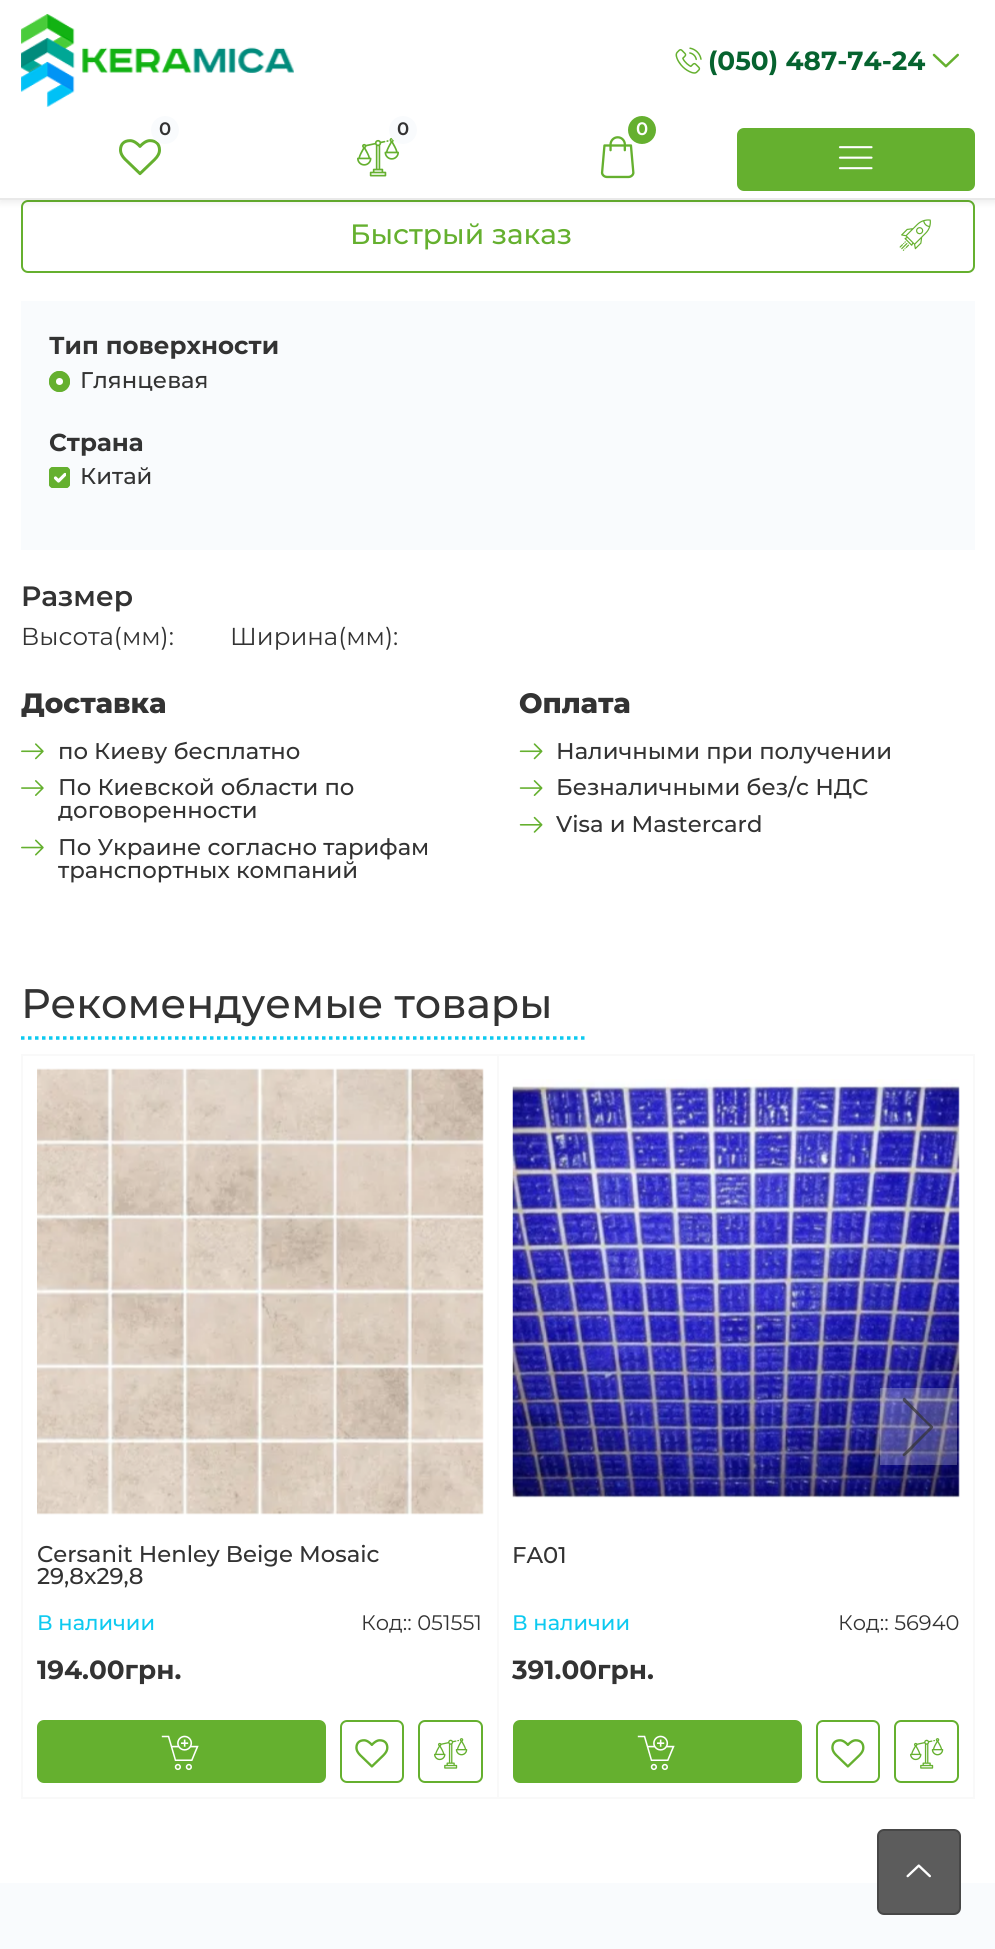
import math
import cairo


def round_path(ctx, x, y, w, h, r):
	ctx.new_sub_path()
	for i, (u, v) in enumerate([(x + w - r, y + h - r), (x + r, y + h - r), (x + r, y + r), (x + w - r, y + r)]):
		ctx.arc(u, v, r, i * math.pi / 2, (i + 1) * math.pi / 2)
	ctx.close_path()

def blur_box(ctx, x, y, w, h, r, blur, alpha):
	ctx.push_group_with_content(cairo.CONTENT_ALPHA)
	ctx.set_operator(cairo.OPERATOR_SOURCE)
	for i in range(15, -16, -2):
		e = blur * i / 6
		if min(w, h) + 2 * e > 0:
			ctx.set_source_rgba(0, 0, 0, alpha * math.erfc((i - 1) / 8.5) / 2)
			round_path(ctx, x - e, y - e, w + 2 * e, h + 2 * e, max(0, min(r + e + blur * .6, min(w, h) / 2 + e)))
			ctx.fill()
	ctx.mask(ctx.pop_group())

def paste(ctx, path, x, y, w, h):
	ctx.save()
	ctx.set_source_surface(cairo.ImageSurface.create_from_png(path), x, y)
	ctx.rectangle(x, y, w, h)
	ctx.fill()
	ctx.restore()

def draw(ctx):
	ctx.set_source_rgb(1, 1, 1)
	ctx.paint()
	round_path(ctx, 22, 201, 952, 71, 6)
	ctx.set_source_rgb(0.396, 0.69, 0.184)
	ctx.stroke()
	ctx.set_source_rgb(0, 0, 0)
	blur_box(ctx, 0, 4, 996, 199, 0, 3.5, 0.07)
	ctx.set_source_rgb(1, 1, 1)
	ctx.rectangle(0, 0, 995, 198)
	ctx.fill()
	ctx.set_source_rgb(0.914, 0.914, 0.914)
	ctx.rectangle(0, 198, 995, 2)
	ctx.fill()
	paste(ctx, 'media/1.png', 21, 14, 273, 93)
	paste(ctx, 'media/2.png', 675, 47, 27, 27)
	ctx.select_font_face('Montserrat', cairo.FONT_SLANT_NORMAL, cairo.FONT_WEIGHT_BOLD)
	ctx.set_font_size(26.25)
	ctx.set_source_rgb(0.024, 0.388, 0.184)
	ctx.move_to(708, 70)
	ctx.show_text('(050) 487-74-24')
	paste(ctx, 'media/3.png', 932, 53, 27, 15)
	paste(ctx, 'media/4.png', 119, 139, 42, 37)
	ctx.set_source_rgb(0.976, 0.984, 0.992)
	ctx.arc(165, 130, 14, 0, 2 * math.pi)
	ctx.fill()
	ctx.select_font_face('Montserrat SemiBold')
	ctx.set_font_size(18)
	ctx.set_source_rgb(0.2, 0.2, 0.2)
	ctx.move_to(159, 135)
	ctx.show_text('0')
	paste(ctx, 'media/5.png', 357, 137, 42, 40)
	ctx.set_source_rgb(0.976, 0.984, 0.992)
	ctx.arc(403, 130, 14, 0, 2 * math.pi)
	ctx.fill()
	ctx.set_source_rgb(0.2, 0.2, 0.2)
	ctx.move_to(397, 135)
	ctx.show_text('0')
	paste(ctx, 'media/6.png', 600, 136, 35, 43)
	ctx.set_source_rgb(0.396, 0.69, 0.184)
	ctx.arc(642, 130, 14, 0, 2 * math.pi)
	ctx.fill()
	ctx.set_source_rgb(1, 1, 1)
	ctx.move_to(636, 135)
	ctx.show_text('0')
	ctx.set_source_rgb(0.396, 0.69, 0.184)
	round_path(ctx, 738, 129, 236, 61, 6)
	ctx.fill_preserve()
	ctx.stroke()
	paste(ctx, 'media/7.png', 838, 146, 35, 24)
	ctx.select_font_face('Montserrat Medium')
	ctx.set_font_size(28)
	ctx.move_to(350, 244)
	ctx.show_text('Быстрый заказ')
	paste(ctx, 'media/8.png', 899, 219, 32, 32)
	ctx.set_source_rgb(0.976, 0.984, 0.992)
	ctx.rectangle(21, 301, 954, 249)
	ctx.fill()
	ctx.select_font_face('Montserrat', cairo.FONT_SLANT_NORMAL, cairo.FONT_WEIGHT_BOLD)
	ctx.set_font_size(24.5)
	ctx.set_source_rgb(0.2, 0.2, 0.2)
	ctx.move_to(49, 354)
	ctx.show_text('Тип поверхности')
	ctx.set_source_rgb(0.396, 0.69, 0.184)
	ctx.new_path()
	ctx.arc(59.5, 381.5, 10.5, 0, 2 * math.pi)
	ctx.fill()
	ctx.set_source_rgb(1, 1, 1)
	ctx.arc(59.5, 381.5, 3.5, 0, 2 * math.pi)
	ctx.fill()
	ctx.arc(59.5, 381.5, 8.5, 0, 2 * math.pi)
	ctx.set_source_rgb(0.396, 0.69, 0.184)
	ctx.set_line_width(4)
	ctx.stroke()
	ctx.select_font_face('Montserrat Medium')
	ctx.set_font_size(22.75)
	ctx.set_source_rgb(0.2, 0.2, 0.2)
	ctx.move_to(80, 388)
	ctx.show_text('Глянцевая')
	ctx.select_font_face('Montserrat', cairo.FONT_SLANT_NORMAL, cairo.FONT_WEIGHT_BOLD)
	ctx.set_font_size(24.5)
	ctx.move_to(49, 451)
	ctx.show_text('Страна')
	ctx.set_source_rgb(0.396, 0.69, 0.184)
	round_path(ctx, 49, 467, 21, 21, 4)
	ctx.fill()
	ctx.new_path()
	ctx.move_to(55.5, 478)
	ctx.line_to(58.5, 481)
	ctx.line_to(65, 474.5)
	ctx.set_source_rgb(1, 1, 1)
	ctx.set_line_width(3.2)
	ctx.set_line_cap(cairo.LINE_CAP_ROUND)
	ctx.set_line_join(cairo.LINE_JOIN_ROUND)
	ctx.stroke()
	round_path(ctx, 51, 469, 17, 17, 2)
	ctx.set_source_rgb(0.396, 0.69, 0.184)
	ctx.set_line_width(4)
	ctx.set_line_cap(cairo.LINE_CAP_BUTT)
	ctx.set_line_join(cairo.LINE_JOIN_MITER)
	ctx.stroke()
	ctx.select_font_face('Montserrat Medium')
	ctx.set_font_size(22.75)
	ctx.set_source_rgb(0.2, 0.2, 0.2)
	ctx.move_to(80, 484)
	ctx.show_text('Китай')
	ctx.select_font_face('Montserrat SemiBold')
	ctx.set_font_size(28)
	ctx.move_to(21, 606)
	ctx.show_text('Размер')
	ctx.select_font_face('Montserrat')
	ctx.set_font_size(24.5)
	ctx.move_to(21, 645)
	ctx.show_text('Высота(мм):')
	ctx.move_to(230, 645)
	ctx.show_text('Ширина(мм):')
	ctx.select_font_face('Montserrat ExtraBold')
	ctx.set_font_size(28)
	ctx.move_to(21, 713)
	ctx.show_text('Доставка')
	paste(ctx, 'media/9.png', 21, 743, 23, 17)
	ctx.select_font_face('Montserrat Medium')
	ctx.set_font_size(22.75)
	ctx.move_to(58, 759)
	ctx.show_text('по Киеву бесплатно')
	paste(ctx, 'media/10.png', 21, 780, 23, 16)
	ctx.move_to(58, 795)
	ctx.show_text('По Киевской области по')
	ctx.move_to(58, 818)
	ctx.show_text('договоренности')
	paste(ctx, 'media/11.png', 21, 839, 23, 17)
	ctx.move_to(58, 855)
	ctx.show_text('По Украине согласно тарифам')
	ctx.move_to(58, 878)
	ctx.show_text('транспортных компаний')
	ctx.select_font_face('Montserrat ExtraBold')
	ctx.set_font_size(28)
	ctx.move_to(519, 713)
	ctx.show_text('Оплата')
	paste(ctx, 'media/12.png', 519, 743, 24, 17)
	ctx.select_font_face('Montserrat Medium')
	ctx.set_font_size(22.75)
	ctx.move_to(556, 759)
	ctx.show_text('Наличными при получении')
	paste(ctx, 'media/13.png', 519, 780, 24, 16)
	ctx.move_to(556, 795)
	ctx.show_text('Безналичными без/с НДС')
	paste(ctx, 'media/14.png', 519, 816, 24, 17)
	ctx.move_to(556, 832)
	ctx.show_text('Visa и Mastercard')
	ctx.set_font_size(41.25)
	ctx.move_to(21, 1018)
	ctx.show_text('Рекомендуемые товары')
	ctx.new_path()
	ctx.move_to(21, 1038)
	ctx.line_to(584.5, 1038)
	ctx.set_source_rgb(0.051, 0.792, 0.941)
	ctx.set_line_width(3.5)
	ctx.set_dash([3.5, 3.5])
	ctx.stroke()
	ctx.rectangle(22, 1055, 476, 743)
	ctx.set_source_rgb(0.976, 0.976, 0.976)
	ctx.set_line_width(2)
	ctx.set_dash([])
	ctx.stroke()
	ctx.rectangle(498, 1055, 476, 743)
	ctx.stroke()
	paste(ctx, 'media/19.png', 512, 1079, 448, 419)
	ctx.set_source_rgba(1, 1, 1, 0.24)
	ctx.rectangle(880, 1388, 77, 77)
	ctx.fill()
	ctx.set_source_rgba(0.2, 0.2, 0.2, 0.7)
	ctx.new_path()
	ctx.move_to(904, 1456)
	ctx.curve_to(903, 1456, 902, 1455, 903, 1454)
	ctx.line_to(930, 1427)
	ctx.line_to(903, 1401)
	ctx.curve_to(902, 1399, 904, 1397, 905, 1398)
	ctx.line_to(928, 1422)
	ctx.curve_to(935, 1428, 935, 1426, 928, 1433)
	ctx.line_to(919, 1442)
	ctx.curve_to(917, 1444, 906, 1456, 904, 1456)
	ctx.close_path()
	ctx.fill()
	paste(ctx, 'media/15.png', 37, 1068, 447, 447)
	ctx.set_font_size(22.75)
	ctx.set_source_rgb(0.2, 0.2, 0.2)
	ctx.move_to(37, 1562)
	ctx.show_text('Cersanit Henley Beige Mosaic')
	ctx.move_to(37, 1584)
	ctx.show_text('29,8x29,8')
	ctx.set_font_size(21)
	ctx.set_source_rgb(0.051, 0.792, 0.941)
	ctx.move_to(37, 1630)
	ctx.show_text('В наличии')
	ctx.select_font_face('Montserrat')
	ctx.set_source_rgb(0.2, 0.2, 0.2)
	ctx.move_to(361, 1630)
	ctx.show_text('Код:: 051551')
	ctx.select_font_face('Montserrat', cairo.FONT_SLANT_NORMAL, cairo.FONT_WEIGHT_BOLD)
	ctx.set_font_size(26.25)
	ctx.move_to(37, 1679)
	ctx.show_text('194.00грн.')
	ctx.set_source_rgb(0.396, 0.69, 0.184)
	round_path(ctx, 38, 1721, 287, 61, 6)
	ctx.fill_preserve()
	ctx.stroke()
	paste(ctx, 'media/16.png', 161, 1735, 38, 36)
	round_path(ctx, 341, 1721, 62, 61, 6)
	ctx.stroke()
	paste(ctx, 'media/17.png', 355, 1739, 34, 29)
	round_path(ctx, 419, 1721, 63, 61, 6)
	ctx.stroke()
	paste(ctx, 'media/18.png', 434, 1738, 34, 31)
	ctx.select_font_face('Montserrat Medium')
	ctx.set_font_size(22.75)
	ctx.set_source_rgb(0.2, 0.2, 0.2)
	ctx.move_to(512, 1563)
	ctx.show_text('FA01')
	ctx.set_font_size(21)
	ctx.set_source_rgb(0.051, 0.792, 0.941)
	ctx.move_to(512, 1630)
	ctx.show_text('В наличии')
	ctx.select_font_face('Montserrat')
	ctx.set_source_rgb(0.2, 0.2, 0.2)
	ctx.move_to(838, 1630)
	ctx.show_text('Код:: 56940')
	ctx.select_font_face('Montserrat', cairo.FONT_SLANT_NORMAL, cairo.FONT_WEIGHT_BOLD)
	ctx.set_font_size(26.25)
	ctx.move_to(512, 1679)
	ctx.show_text('391.00грн.')
	ctx.set_source_rgb(0.396, 0.69, 0.184)
	round_path(ctx, 514, 1721, 287, 61, 6)
	ctx.fill_preserve()
	ctx.stroke()
	paste(ctx, 'media/16.png', 637, 1735, 38, 36)
	round_path(ctx, 817, 1721, 62, 61, 6)
	ctx.stroke()
	paste(ctx, 'media/17.png', 831, 1739, 34, 29)
	round_path(ctx, 895, 1721, 63, 61, 6)
	ctx.stroke()
	paste(ctx, 'media/18.png', 910, 1738, 34, 31)
	ctx.set_source_rgb(0.976, 0.984, 0.992)
	ctx.rectangle(0, 1883, 995, 66)
	ctx.fill()
	ctx.set_source_rgb(0.361, 0.361, 0.361)
	round_path(ctx, 878, 1830, 82, 84, 6)
	ctx.fill_preserve()
	ctx.set_source_rgb(0.278, 0.278, 0.278)
	ctx.stroke()
	paste(ctx, 'media/20.png', 906, 1864, 25, 14)


surface = cairo.ImageSurface(cairo.FORMAT_RGB24, 995, 1949)
ctx = cairo.Context(surface)
options = cairo.FontOptions()
options.set_hint_metrics(cairo.HINT_METRICS_OFF)
options.set_hint_style(cairo.HINT_STYLE_NONE)
ctx.set_font_options(options)
ctx.set_miter_limit(4)
draw(ctx)
surface.write_to_png('image.png')
